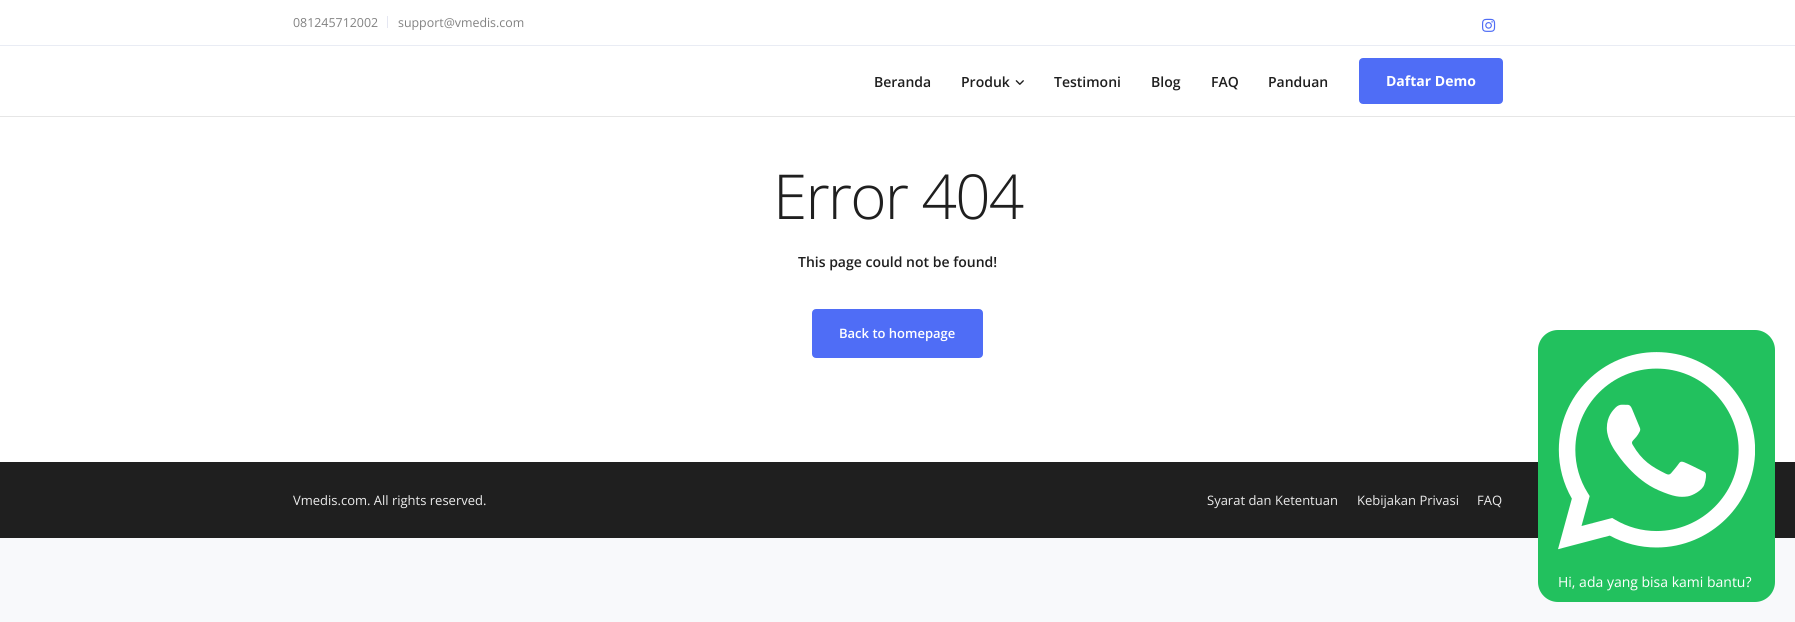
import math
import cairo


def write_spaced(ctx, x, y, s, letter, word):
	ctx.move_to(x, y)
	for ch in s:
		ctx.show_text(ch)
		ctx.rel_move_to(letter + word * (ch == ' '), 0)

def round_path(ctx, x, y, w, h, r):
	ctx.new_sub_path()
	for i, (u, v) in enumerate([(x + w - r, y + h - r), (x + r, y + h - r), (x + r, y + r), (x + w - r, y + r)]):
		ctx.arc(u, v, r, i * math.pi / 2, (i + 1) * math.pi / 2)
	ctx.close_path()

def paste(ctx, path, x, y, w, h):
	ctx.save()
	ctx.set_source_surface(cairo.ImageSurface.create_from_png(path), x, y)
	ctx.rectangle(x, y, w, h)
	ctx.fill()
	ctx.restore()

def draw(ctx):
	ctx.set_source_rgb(0.969, 0.976, 0.984)
	ctx.paint()
	ctx.set_source_rgb(1, 1, 1)
	ctx.rectangle(0, 0, 1795, 462)
	ctx.fill()
	ctx.set_source_rgb(0.902, 0.902, 0.902)
	ctx.rectangle(0, 116, 1795, 1)
	ctx.fill()
	ctx.set_source_rgb(0.914, 0.922, 0.957)
	ctx.rectangle(0, 45, 1795, 1)
	ctx.fill()
	ctx.select_font_face('Open Sans')
	ctx.set_font_size(12.4)
	ctx.set_source_rgb(0.51, 0.51, 0.51)
	ctx.move_to(293, 27)
	ctx.show_text('081245712002')
	ctx.set_source_rgb(0.898, 0.906, 0.949)
	ctx.rectangle(387, 16, 1, 12)
	ctx.fill()
	ctx.set_source_rgb(0.51, 0.51, 0.51)
	ctx.move_to(398, 27)
	ctx.show_text('support@vmedis.com')
	paste(ctx, 'media/1.png', 1482, 18, 14, 14)
	ctx.select_font_face('Open Sans SemiBold')
	ctx.set_font_size(14)
	ctx.set_source_rgb(0.122, 0.122, 0.122)
	ctx.move_to(874, 87)
	ctx.show_text('Beranda')
	ctx.move_to(961, 87)
	ctx.show_text('Produk')
	paste(ctx, 'media/2.png', 1015, 80, 9, 5)
	for x, y, s in [
		(1054, 87, 'Testimoni'),
		(1151, 87, 'Blog'),
		(1211, 87, 'FAQ'),
		(1268, 87, 'Panduan'),
	]:
		ctx.move_to(x, y)
		ctx.show_text(s)
	ctx.set_source_rgb(0.31, 0.427, 0.961)
	round_path(ctx, 1360, 59, 142, 44, 3)
	ctx.fill_preserve()
	ctx.stroke()
	ctx.select_font_face('Open Sans', cairo.FONT_SLANT_NORMAL, cairo.FONT_WEIGHT_BOLD)
	ctx.set_source_rgb(1, 1, 1)
	ctx.move_to(1386, 86)
	ctx.show_text('Daftar Demo')
	ctx.select_font_face('Open Sans Light')
	ctx.set_font_size(62)
	ctx.set_source_rgb(0.122, 0.122, 0.122)
	write_spaced(ctx, 773, 219, 'Error 404', -1.75, 0)
	ctx.select_font_face('Open Sans SemiBold')
	ctx.set_font_size(14)
	ctx.move_to(798, 267)
	ctx.show_text('This page could not be found!')
	ctx.set_source_rgb(0.31, 0.427, 0.961)
	round_path(ctx, 813, 310, 169, 47, 3)
	ctx.fill_preserve()
	ctx.stroke()
	ctx.set_font_size(13)
	ctx.set_source_rgb(1, 1, 1)
	ctx.move_to(839, 338)
	ctx.show_text('Back to homepage')
	ctx.set_source_rgb(0.122, 0.122, 0.122)
	ctx.rectangle(0, 462, 1795, 76)
	ctx.fill()
	ctx.select_font_face('Open Sans')
	ctx.set_source_rgb(0.918, 0.918, 0.918)
	for x, y, s in [
		(293, 505, 'Vmedis.com. All rights reserved.'),
		(1207, 505, 'Syarat dan Ketentuan'),
		(1357, 505, 'Kebijakan Privasi'),
		(1477, 505, 'FAQ'),
	]:
		ctx.move_to(x, y)
		ctx.show_text(s)
	ctx.set_source_rgb(0.133, 0.757, 0.369)
	round_path(ctx, 1538, 330, 237, 272, 20)
	ctx.fill()
	paste(ctx, 'media/3.png', 1558, 352, 197, 198)
	ctx.set_font_size(14)
	ctx.set_source_rgb(1, 1, 1)
	ctx.move_to(1558, 587)
	ctx.show_text('Hi, ada yang bisa kami bantu?')


surface = cairo.ImageSurface(cairo.FORMAT_RGB24, 1795, 622)
ctx = cairo.Context(surface)
options = cairo.FontOptions()
options.set_hint_metrics(cairo.HINT_METRICS_OFF)
options.set_hint_style(cairo.HINT_STYLE_NONE)
ctx.set_font_options(options)
ctx.set_miter_limit(4)
draw(ctx)
surface.write_to_png('image.png')
